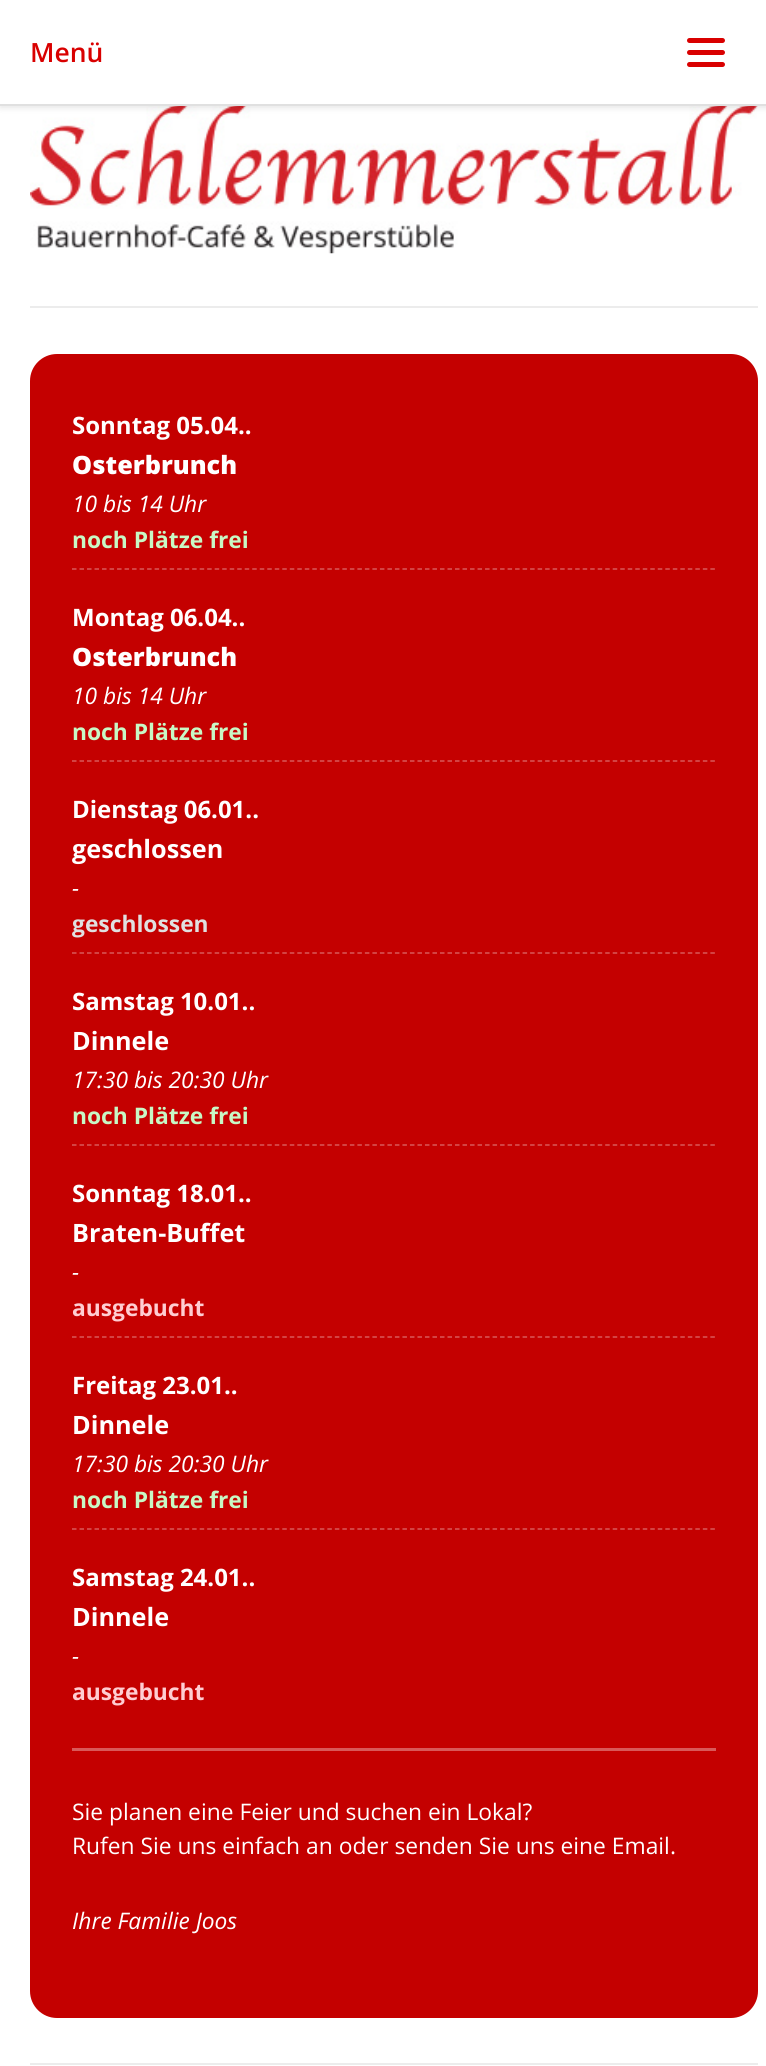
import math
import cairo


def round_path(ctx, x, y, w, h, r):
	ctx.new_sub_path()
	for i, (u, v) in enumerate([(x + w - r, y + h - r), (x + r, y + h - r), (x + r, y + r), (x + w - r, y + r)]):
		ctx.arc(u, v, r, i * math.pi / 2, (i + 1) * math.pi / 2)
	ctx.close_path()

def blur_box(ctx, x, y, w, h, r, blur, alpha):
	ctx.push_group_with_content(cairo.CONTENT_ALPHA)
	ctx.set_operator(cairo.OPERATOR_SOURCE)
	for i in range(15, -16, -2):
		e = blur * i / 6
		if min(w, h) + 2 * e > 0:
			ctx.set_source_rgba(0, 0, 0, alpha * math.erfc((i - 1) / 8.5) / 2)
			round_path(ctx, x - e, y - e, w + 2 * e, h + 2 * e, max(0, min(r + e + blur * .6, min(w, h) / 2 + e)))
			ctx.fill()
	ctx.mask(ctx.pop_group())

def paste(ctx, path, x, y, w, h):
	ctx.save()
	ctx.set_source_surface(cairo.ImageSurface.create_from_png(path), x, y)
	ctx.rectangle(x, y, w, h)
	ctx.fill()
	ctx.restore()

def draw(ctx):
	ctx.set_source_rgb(1, 1, 1)
	ctx.paint()
	paste(ctx, 'media/1.png', 30, 106, 728, 148)
	ctx.set_source_rgb(0, 0, 0)
	blur_box(ctx, 0, 3, 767, 105, 0, 3, 0.1)
	ctx.set_source_rgb(1, 1, 1)
	ctx.rectangle(0, 0, 766, 104)
	ctx.fill()
	ctx.set_source_rgb(0.878, 0.878, 0.878)
	ctx.rectangle(0, 104, 766, 2)
	ctx.fill()
	ctx.select_font_face('Open Sans SemiBold')
	ctx.set_font_size(26.5)
	ctx.set_source_rgb(0.851, 0, 0)
	ctx.move_to(30, 62)
	ctx.show_text('Menü')
	round_path(ctx, 687, 38, 38, 5, 2.5)
	ctx.fill()
	round_path(ctx, 687, 50, 38, 5, 2.5)
	ctx.fill()
	round_path(ctx, 687, 62, 38, 5, 2.5)
	ctx.fill()
	ctx.set_source_rgb(0.925, 0.925, 0.925)
	ctx.rectangle(30, 306, 728, 2)
	ctx.fill()
	ctx.set_source_rgb(0.769, 0, 0)
	round_path(ctx, 30, 354, 728, 1664, 27)
	ctx.fill()
	ctx.new_path()
	ctx.move_to(72, 569)
	ctx.line_to(715.5, 569)
	ctx.set_source_rgb(0.851, 0.349, 0.349)
	ctx.set_line_width(1.5)
	ctx.set_dash([4.5, 3.01])
	ctx.stroke()
	ctx.select_font_face('Open Sans', cairo.FONT_SLANT_NORMAL, cairo.FONT_WEIGHT_BOLD)
	ctx.set_font_size(24)
	ctx.set_source_rgb(1, 1, 1)
	ctx.move_to(72, 434)
	ctx.show_text('Sonntag 05.04..')
	ctx.select_font_face('Open Sans ExtraBold')
	ctx.set_font_size(25.25)
	ctx.move_to(72, 474)
	ctx.show_text('Osterbrunch')
	ctx.select_font_face('Open Sans', cairo.FONT_SLANT_ITALIC)
	ctx.set_font_size(22.8)
	ctx.move_to(72, 512)
	ctx.show_text('10 bis 14 Uhr')
	ctx.select_font_face('Open Sans', cairo.FONT_SLANT_NORMAL, cairo.FONT_WEIGHT_BOLD)
	ctx.set_source_rgb(0.784, 0.969, 0.773)
	ctx.move_to(72, 548)
	ctx.show_text('noch Plätze frei')
	ctx.new_path()
	ctx.move_to(72, 761)
	ctx.line_to(715.5, 761)
	ctx.set_source_rgb(0.851, 0.349, 0.349)
	ctx.stroke()
	ctx.set_font_size(24)
	ctx.set_source_rgb(1, 1, 1)
	ctx.move_to(72, 626)
	ctx.show_text('Montag 06.04..')
	ctx.select_font_face('Open Sans ExtraBold')
	ctx.set_font_size(25.25)
	ctx.move_to(72, 666)
	ctx.show_text('Osterbrunch')
	ctx.select_font_face('Open Sans', cairo.FONT_SLANT_ITALIC)
	ctx.set_font_size(22.8)
	ctx.move_to(72, 704)
	ctx.show_text('10 bis 14 Uhr')
	ctx.select_font_face('Open Sans', cairo.FONT_SLANT_NORMAL, cairo.FONT_WEIGHT_BOLD)
	ctx.set_source_rgb(0.784, 0.969, 0.773)
	ctx.move_to(72, 740)
	ctx.show_text('noch Plätze frei')
	ctx.new_path()
	ctx.move_to(72, 953)
	ctx.line_to(715.5, 953)
	ctx.set_source_rgb(0.851, 0.349, 0.349)
	ctx.stroke()
	ctx.set_font_size(24)
	ctx.set_source_rgb(1, 1, 1)
	ctx.move_to(72, 818)
	ctx.show_text('Dienstag 06.01..')
	ctx.set_font_size(25.25)
	ctx.move_to(72, 858)
	ctx.show_text('geschlossen')
	ctx.select_font_face('Open Sans', cairo.FONT_SLANT_ITALIC)
	ctx.set_font_size(22.8)
	ctx.move_to(72, 896)
	ctx.show_text('-')
	ctx.select_font_face('Open Sans', cairo.FONT_SLANT_NORMAL, cairo.FONT_WEIGHT_BOLD)
	ctx.set_source_rgb(0.878, 0.878, 0.878)
	ctx.move_to(72, 932)
	ctx.show_text('geschlossen')
	ctx.new_path()
	ctx.move_to(72, 1145)
	ctx.line_to(715.5, 1145)
	ctx.set_source_rgb(0.851, 0.349, 0.349)
	ctx.stroke()
	ctx.set_font_size(24)
	ctx.set_source_rgb(1, 1, 1)
	ctx.move_to(72, 1010)
	ctx.show_text('Samstag 10.01..')
	ctx.set_font_size(25.25)
	ctx.move_to(72, 1050)
	ctx.show_text('Dinnele')
	ctx.select_font_face('Open Sans', cairo.FONT_SLANT_ITALIC)
	ctx.set_font_size(22.8)
	ctx.move_to(72, 1088)
	ctx.show_text('17:30 bis 20:30 Uhr')
	ctx.select_font_face('Open Sans', cairo.FONT_SLANT_NORMAL, cairo.FONT_WEIGHT_BOLD)
	ctx.set_source_rgb(0.784, 0.969, 0.773)
	ctx.move_to(72, 1124)
	ctx.show_text('noch Plätze frei')
	ctx.new_path()
	ctx.move_to(72, 1337)
	ctx.line_to(715.5, 1337)
	ctx.set_source_rgb(0.851, 0.349, 0.349)
	ctx.stroke()
	ctx.set_font_size(24)
	ctx.set_source_rgb(1, 1, 1)
	ctx.move_to(72, 1202)
	ctx.show_text('Sonntag 18.01..')
	ctx.set_font_size(25.25)
	ctx.move_to(72, 1242)
	ctx.show_text('Braten-Buffet')
	ctx.select_font_face('Open Sans', cairo.FONT_SLANT_ITALIC)
	ctx.set_font_size(22.8)
	ctx.move_to(72, 1280)
	ctx.show_text('-')
	ctx.select_font_face('Open Sans', cairo.FONT_SLANT_NORMAL, cairo.FONT_WEIGHT_BOLD)
	ctx.set_source_rgb(1, 0.804, 0.824)
	ctx.move_to(72, 1316)
	ctx.show_text('ausgebucht')
	ctx.new_path()
	ctx.move_to(72, 1529)
	ctx.line_to(715.5, 1529)
	ctx.set_source_rgb(0.851, 0.349, 0.349)
	ctx.stroke()
	ctx.set_font_size(24)
	ctx.set_source_rgb(1, 1, 1)
	ctx.move_to(72, 1394)
	ctx.show_text('Freitag 23.01..')
	ctx.set_font_size(25.25)
	ctx.move_to(72, 1434)
	ctx.show_text('Dinnele')
	ctx.select_font_face('Open Sans', cairo.FONT_SLANT_ITALIC)
	ctx.set_font_size(22.8)
	ctx.move_to(72, 1472)
	ctx.show_text('17:30 bis 20:30 Uhr')
	ctx.select_font_face('Open Sans', cairo.FONT_SLANT_NORMAL, cairo.FONT_WEIGHT_BOLD)
	ctx.set_source_rgb(0.784, 0.969, 0.773)
	ctx.move_to(72, 1508)
	ctx.show_text('noch Plätze frei')
	ctx.set_font_size(24)
	ctx.set_source_rgb(1, 1, 1)
	ctx.move_to(72, 1586)
	ctx.show_text('Samstag 24.01..')
	ctx.set_font_size(25.25)
	ctx.move_to(72, 1626)
	ctx.show_text('Dinnele')
	ctx.select_font_face('Open Sans', cairo.FONT_SLANT_ITALIC)
	ctx.set_font_size(22.8)
	ctx.move_to(72, 1664)
	ctx.show_text('-')
	ctx.select_font_face('Open Sans', cairo.FONT_SLANT_NORMAL, cairo.FONT_WEIGHT_BOLD)
	ctx.set_source_rgb(1, 0.804, 0.824)
	ctx.move_to(72, 1700)
	ctx.show_text('ausgebucht')
	ctx.set_source_rgb(0.851, 0.349, 0.349)
	ctx.rectangle(72, 1748, 644, 3)
	ctx.fill()
	ctx.select_font_face('Open Sans')
	ctx.set_source_rgb(1, 1, 1)
	ctx.move_to(72, 1820)
	ctx.show_text('Sie planen eine Feier und suchen ein Lokal?')
	ctx.move_to(72, 1854)
	ctx.show_text('Rufen Sie uns einfach an oder senden Sie uns eine Email.')
	ctx.select_font_face('Open Sans', cairo.FONT_SLANT_ITALIC)
	ctx.move_to(72, 1929)
	ctx.show_text('Ihre Familie Joos')
	ctx.set_source_rgb(0.925, 0.925, 0.925)
	ctx.rectangle(30, 2063, 728, 2)
	ctx.fill()


surface = cairo.ImageSurface(cairo.FORMAT_RGB24, 766, 2066)
ctx = cairo.Context(surface)
options = cairo.FontOptions()
options.set_hint_metrics(cairo.HINT_METRICS_OFF)
options.set_hint_style(cairo.HINT_STYLE_NONE)
ctx.set_font_options(options)
ctx.set_miter_limit(4)
draw(ctx)
surface.write_to_png('image.png')
